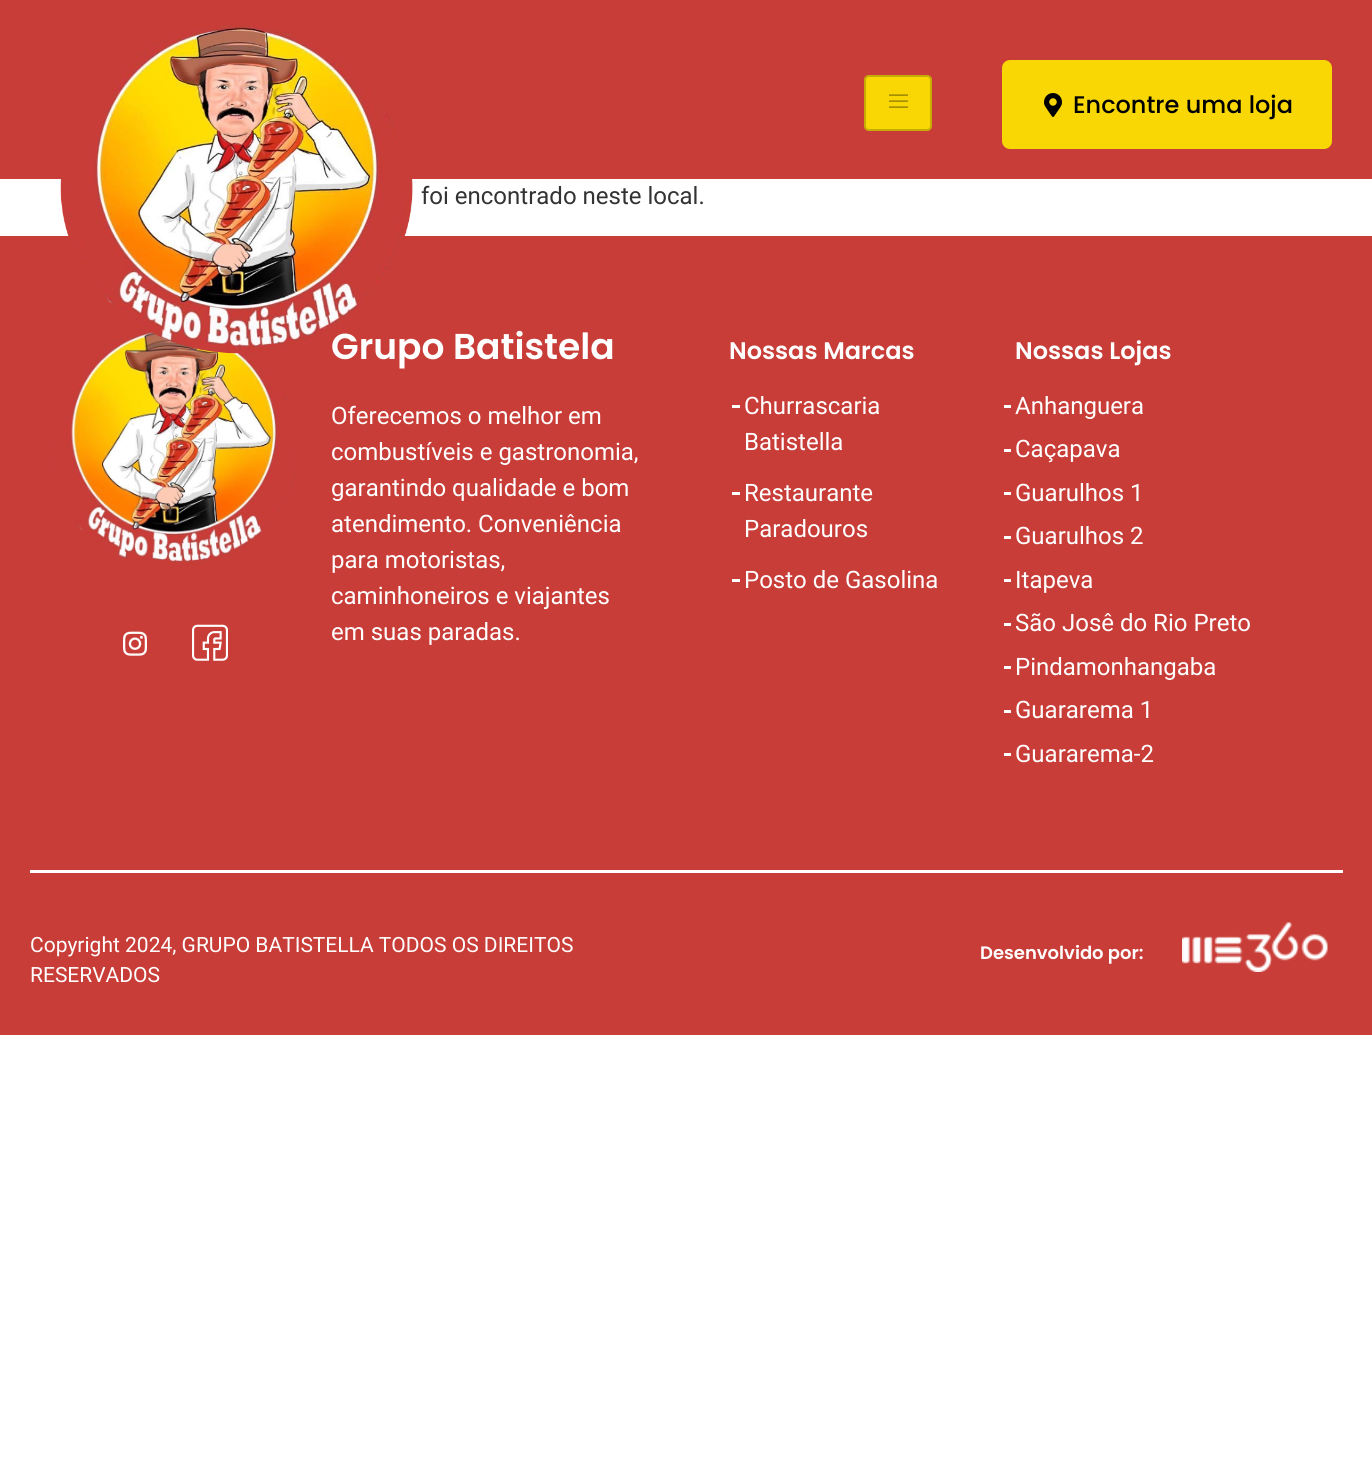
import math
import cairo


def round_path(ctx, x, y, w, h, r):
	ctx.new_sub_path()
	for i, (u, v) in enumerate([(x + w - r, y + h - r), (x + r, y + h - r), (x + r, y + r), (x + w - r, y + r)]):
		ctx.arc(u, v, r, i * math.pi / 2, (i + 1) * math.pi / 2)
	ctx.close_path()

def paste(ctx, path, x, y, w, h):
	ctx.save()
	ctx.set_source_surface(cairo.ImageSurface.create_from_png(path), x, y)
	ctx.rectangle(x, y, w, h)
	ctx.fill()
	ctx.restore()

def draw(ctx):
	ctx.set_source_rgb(1, 1, 1)
	ctx.paint()
	ctx.set_source_rgb(0.784, 0.239, 0.216)
	ctx.rectangle(0, 0, 1372, 179)
	ctx.fill()
	ctx.rectangle(0, 236, 1372, 799)
	ctx.fill()
	paste(ctx, 'media/4.png', 51, 328, 245, 238)
	ctx.select_font_face('Poppins SemiBold')
	ctx.set_font_size(36)
	ctx.set_source_rgb(1, 1, 1)
	ctx.move_to(331, 359)
	ctx.show_text('Grupo Batistela')
	paste(ctx, 'media/1.png', 60, 25, 353, 329)
	ctx.set_source_rgb(0.976, 0.843, 0.02)
	round_path(ctx, 864, 75, 68, 56, 5)
	ctx.fill()
	round_path(ctx, 865, 76, 66, 54, 4)
	ctx.set_source_rgba(0, 0, 0, 0.2)
	ctx.stroke()
	paste(ctx, 'media/2.png', 889, 94, 19, 14)
	ctx.set_source_rgb(0.976, 0.843, 0.02)
	round_path(ctx, 1003.5, 61.5, 327, 86, 6.5)
	ctx.fill_preserve()
	ctx.set_line_width(3)
	ctx.stroke()
	paste(ctx, 'media/3.png', 1044, 93, 18, 24)
	ctx.select_font_face('Poppins Medium')
	ctx.set_font_size(24)
	ctx.set_source_rgb(0, 0, 0)
	ctx.move_to(1073, 113)
	ctx.show_text('Encontre uma loja')
	ctx.select_font_face('Roboto')
	ctx.set_source_rgb(0.2, 0.2, 0.2)
	ctx.move_to(421, 204)
	ctx.show_text('foi encontrado neste local.')
	paste(ctx, 'media/5.png', 123, 631, 24, 25)
	paste(ctx, 'media/6.png', 192, 624, 36, 37)
	ctx.set_source_rgb(1, 1, 1)
	for x, y, s in [
		(331, 424, 'Oferecemos o melhor em'),
		(331, 460, 'combustíveis e gastronomia,'),
		(331, 496, 'garantindo qualidade e bom'),
		(331, 532, 'atendimento. Conveniência'),
		(331, 568, 'para motoristas,'),
		(331, 604, 'caminhoneiros e viajantes'),
		(331, 640, 'em suas paradas.'),
	]:
		ctx.move_to(x, y)
		ctx.show_text(s)
	ctx.select_font_face('Poppins SemiBold')
	ctx.move_to(729, 359)
	ctx.show_text('Nossas Marcas')
	ctx.rectangle(732, 405, 8, 3)
	ctx.fill()
	ctx.select_font_face('Roboto')
	ctx.move_to(744, 414)
	ctx.show_text('Churrascaria')
	ctx.move_to(744, 450)
	ctx.show_text('Batistella')
	ctx.rectangle(732, 492, 8, 3)
	ctx.fill()
	ctx.move_to(744, 501)
	ctx.show_text('Restaurante')
	ctx.move_to(744, 537)
	ctx.show_text('Paradouros')
	ctx.rectangle(732, 579, 8, 3)
	ctx.fill()
	ctx.move_to(744, 588)
	ctx.show_text('Posto de Gasolina')
	ctx.select_font_face('Poppins SemiBold')
	ctx.move_to(1015, 359)
	ctx.show_text('Nossas Lojas')
	ctx.rectangle(1004, 405, 7, 3)
	ctx.fill()
	ctx.select_font_face('Roboto')
	ctx.move_to(1015, 414)
	ctx.show_text('Anhanguera')
	ctx.rectangle(1004, 449, 7, 3)
	ctx.fill()
	ctx.move_to(1015, 457)
	ctx.show_text('Caçapava')
	ctx.rectangle(1004, 492, 7, 3)
	ctx.fill()
	ctx.move_to(1015, 501)
	ctx.show_text('Guarulhos 1')
	ctx.rectangle(1004, 536, 7, 3)
	ctx.fill()
	ctx.move_to(1015, 544)
	ctx.show_text('Guarulhos 2')
	ctx.rectangle(1004, 579, 7, 3)
	ctx.fill()
	ctx.move_to(1015, 588)
	ctx.show_text('Itapeva')
	ctx.rectangle(1004, 623, 7, 3)
	ctx.fill()
	ctx.move_to(1015, 631)
	ctx.show_text('São Josê do Rio Preto')
	ctx.rectangle(1004, 666, 7, 3)
	ctx.fill()
	ctx.move_to(1015, 675)
	ctx.show_text('Pindamonhangaba')
	ctx.rectangle(1004, 710, 7, 3)
	ctx.fill()
	ctx.move_to(1015, 718)
	ctx.show_text('Guararema 1')
	ctx.rectangle(1004, 753, 7, 3)
	ctx.fill()
	ctx.move_to(1015, 762)
	ctx.show_text('Guararema-2')
	ctx.rectangle(30, 870, 1313, 3)
	ctx.fill()
	ctx.set_font_size(21)
	ctx.move_to(30, 952)
	ctx.show_text('Copyright 2024, GRUPO BATISTELLA TODOS OS DIREITOS')
	ctx.move_to(30, 982)
	ctx.show_text('RESERVADOS')
	ctx.select_font_face('Poppins SemiBold')
	ctx.set_font_size(18)
	ctx.move_to(980, 959)
	ctx.show_text('Desenvolvido por:')
	paste(ctx, 'media/7.png', 1182, 922, 146, 50)


surface = cairo.ImageSurface(cairo.FORMAT_RGB24, 1372, 1484)
ctx = cairo.Context(surface)
options = cairo.FontOptions()
options.set_hint_metrics(cairo.HINT_METRICS_OFF)
options.set_hint_style(cairo.HINT_STYLE_NONE)
ctx.set_font_options(options)
ctx.set_miter_limit(4)
draw(ctx)
surface.write_to_png('image.png')
